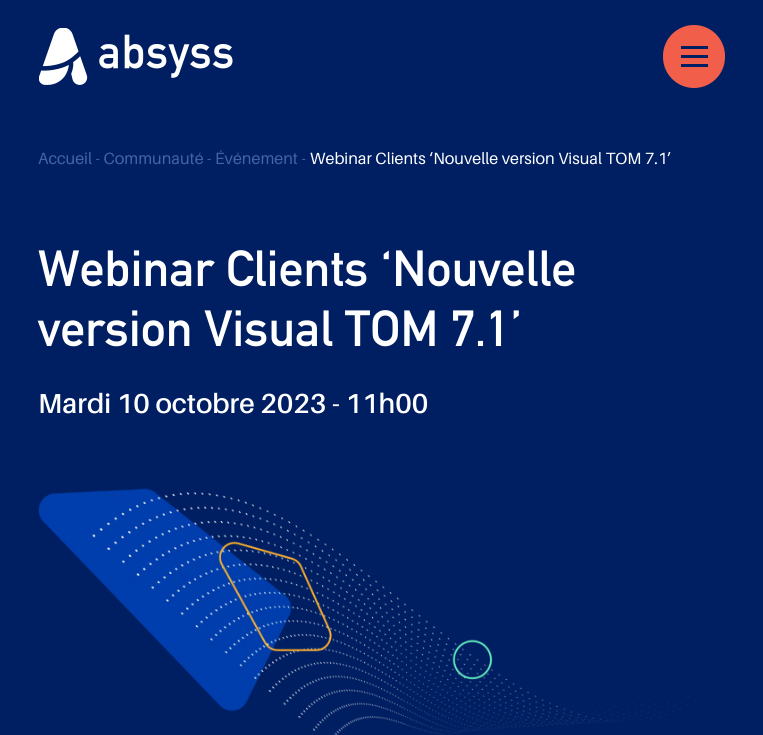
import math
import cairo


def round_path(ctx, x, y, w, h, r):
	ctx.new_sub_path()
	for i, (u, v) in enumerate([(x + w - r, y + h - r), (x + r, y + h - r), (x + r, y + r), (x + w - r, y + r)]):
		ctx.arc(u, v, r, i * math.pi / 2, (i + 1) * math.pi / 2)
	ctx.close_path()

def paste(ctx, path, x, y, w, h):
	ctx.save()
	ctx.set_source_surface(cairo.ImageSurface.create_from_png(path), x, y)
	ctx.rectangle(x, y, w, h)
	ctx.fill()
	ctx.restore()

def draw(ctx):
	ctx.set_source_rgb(0, 0.122, 0.384)
	ctx.paint()
	paste(ctx, 'media/1.png', 39, 28, 194, 57)
	ctx.set_source_rgb(0.945, 0.373, 0.294)
	round_path(ctx, 663, 25, 62, 63, 31)
	ctx.fill()
	ctx.set_source_rgb(0, 0.122, 0.384)
	ctx.rectangle(681, 46, 27, 3)
	ctx.rectangle(681, 55, 27, 3)
	ctx.rectangle(681, 64, 27, 3)
	ctx.fill()
	ctx.select_font_face('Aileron')
	ctx.set_font_size(16.25)
	ctx.set_source_rgb(0.263, 0.388, 0.663)
	ctx.move_to(38, 164)
	ctx.show_text('Accueil - Communauté - Événement -')
	ctx.set_source_rgb(1, 1, 1)
	ctx.move_to(310, 164)
	ctx.show_text('Webinar Clients ‘Nouvelle version Visual TOM 7.1’')
	ctx.select_font_face('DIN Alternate', cairo.FONT_SLANT_NORMAL, cairo.FONT_WEIGHT_BOLD)
	ctx.set_font_size(50)
	ctx.move_to(38, 286)
	ctx.show_text('Webinar Clients ‘Nouvelle')
	ctx.move_to(38, 346)
	ctx.show_text('version Visual TOM 7.1’')
	ctx.select_font_face('Aileron SemiBold')
	ctx.set_font_size(27.5)
	ctx.move_to(38, 413)
	ctx.show_text('Mardi 10 octobre 2023 - 11h00')
	paste(ctx, 'media/2.png', 38, 488, 664, 247)


surface = cairo.ImageSurface(cairo.FORMAT_RGB24, 763, 735)
ctx = cairo.Context(surface)
options = cairo.FontOptions()
options.set_hint_metrics(cairo.HINT_METRICS_OFF)
options.set_hint_style(cairo.HINT_STYLE_NONE)
ctx.set_font_options(options)
ctx.set_miter_limit(4)
draw(ctx)
surface.write_to_png('image.png')
